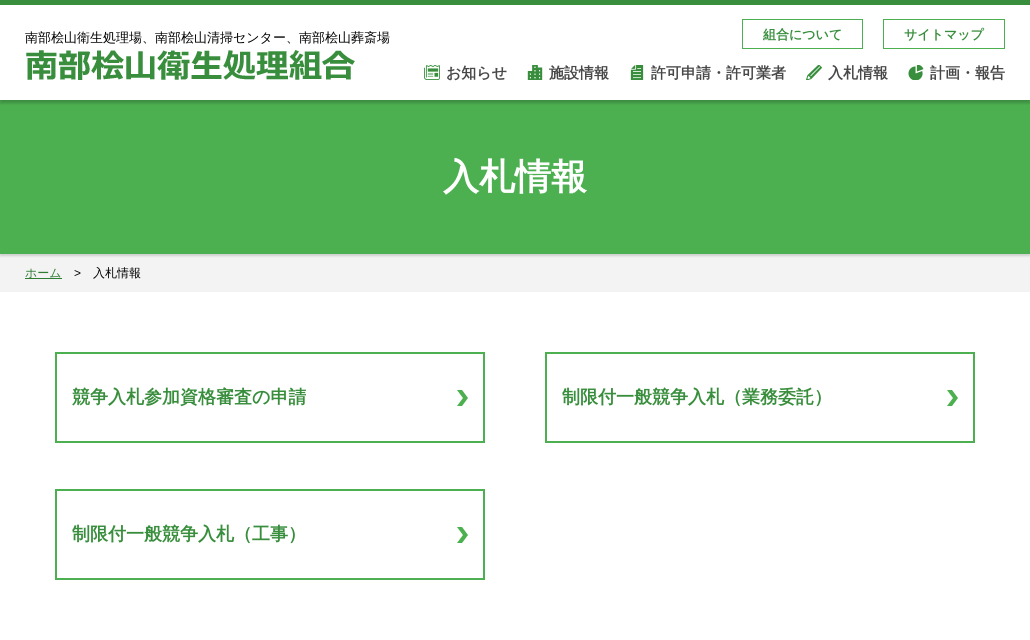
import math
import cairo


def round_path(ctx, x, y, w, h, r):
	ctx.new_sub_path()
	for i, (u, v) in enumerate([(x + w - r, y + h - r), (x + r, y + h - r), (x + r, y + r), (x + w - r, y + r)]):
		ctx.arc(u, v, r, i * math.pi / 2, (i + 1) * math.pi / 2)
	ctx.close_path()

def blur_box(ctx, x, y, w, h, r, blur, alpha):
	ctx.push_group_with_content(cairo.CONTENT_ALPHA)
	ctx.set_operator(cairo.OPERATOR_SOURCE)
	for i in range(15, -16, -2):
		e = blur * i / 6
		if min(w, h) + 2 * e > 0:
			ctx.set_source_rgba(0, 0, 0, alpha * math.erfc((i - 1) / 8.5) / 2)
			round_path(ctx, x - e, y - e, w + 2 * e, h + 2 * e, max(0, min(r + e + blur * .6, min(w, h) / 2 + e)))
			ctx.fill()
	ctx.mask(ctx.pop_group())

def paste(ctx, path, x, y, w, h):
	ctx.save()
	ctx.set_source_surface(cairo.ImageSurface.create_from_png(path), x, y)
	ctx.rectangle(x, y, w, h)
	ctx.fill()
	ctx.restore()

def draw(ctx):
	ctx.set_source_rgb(1, 1, 1)
	ctx.paint()
	ctx.set_source_rgb(0.953, 0.953, 0.953)
	ctx.rectangle(0, 254, 1030, 38)
	ctx.fill()
	ctx.set_source_rgb(0, 0, 0)
	blur_box(ctx, 0, 102, 1030, 154, 0, 1, 0.15)
	ctx.set_source_rgb(0.298, 0.686, 0.314)
	ctx.rectangle(0, 100, 1030, 154)
	ctx.fill()
	ctx.save()
	ctx.rectangle(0, 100, 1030, 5)
	ctx.clip()
	ctx.set_source_rgb(0, 0, 0)
	blur_box(ctx, 0, 3, 1030, 100, 0, 1.5, 0.2)
	ctx.restore()
	ctx.set_source_rgb(0.22, 0.557, 0.235)
	ctx.rectangle(0, 0, 1030, 5)
	ctx.fill()
	ctx.select_font_face('WenQuanYi Zen Hei Medium')
	ctx.set_font_size(13)
	ctx.set_source_rgb(0, 0, 0)
	ctx.move_to(25, 42)
	ctx.show_text('南部桧山衛生処理場、南部桧山清掃センター、南部桧山葬斎場')
	ctx.rectangle(742.5, 19.5, 120, 29)
	ctx.set_source_rgb(0.298, 0.686, 0.314)
	ctx.set_line_width(1)
	ctx.stroke()
	ctx.select_font_face('WenQuanYi Zen Hei', cairo.FONT_SLANT_NORMAL, cairo.FONT_WEIGHT_BOLD)
	ctx.set_source_rgb(0.22, 0.557, 0.235)
	ctx.move_to(763, 39)
	ctx.show_text('組合について')
	ctx.rectangle(883.5, 19.5, 121, 29)
	ctx.set_source_rgb(0.298, 0.686, 0.314)
	ctx.stroke()
	ctx.set_source_rgb(0.22, 0.557, 0.235)
	ctx.move_to(904, 39)
	ctx.show_text('サイトマップ')
	paste(ctx, 'media/1.png', 26, 50, 329, 30)
	paste(ctx, 'media/2.png', 424, 65, 16, 15)
	ctx.set_font_size(15)
	ctx.set_source_rgb(0.282, 0.282, 0.282)
	ctx.move_to(446, 78)
	ctx.show_text('お知らせ')
	paste(ctx, 'media/3.png', 527, 65, 16, 15)
	ctx.move_to(549, 78)
	ctx.show_text('施設情報')
	paste(ctx, 'media/4.png', 630, 65, 14, 15)
	ctx.move_to(651, 78)
	ctx.show_text('許可申請・許可業者')
	paste(ctx, 'media/5.png', 806, 65, 16, 15)
	ctx.move_to(828, 78)
	ctx.show_text('入札情報')
	paste(ctx, 'media/6.png', 908, 65, 16, 15)
	ctx.move_to(930, 78)
	ctx.show_text('計画・報告')
	ctx.set_font_size(36)
	ctx.set_source_rgb(1, 1, 1)
	ctx.move_to(443, 189)
	ctx.show_text('入札情報')
	ctx.set_source_rgb(0.18, 0.49, 0.196)
	ctx.rectangle(25, 278, 37, 1)
	ctx.fill()
	ctx.select_font_face('WenQuanYi Zen Hei Medium')
	ctx.set_font_size(12)
	ctx.move_to(25, 277)
	ctx.show_text('ホーム')
	ctx.select_font_face('Liberation Sans')
	ctx.set_source_rgb(0, 0, 0)
	ctx.move_to(74, 277)
	ctx.show_text('>')
	ctx.select_font_face('WenQuanYi Zen Hei Medium')
	ctx.move_to(93, 277)
	ctx.show_text('入札情報')
	paste(ctx, 'media/7.png', 457, 390, 11, 16)
	ctx.rectangle(56, 353, 428, 89)
	ctx.set_source_rgb(0.298, 0.686, 0.314)
	ctx.set_line_width(2)
	ctx.stroke()
	ctx.select_font_face('WenQuanYi Zen Hei', cairo.FONT_SLANT_NORMAL, cairo.FONT_WEIGHT_BOLD)
	ctx.set_font_size(18)
	ctx.set_source_rgb(0.22, 0.557, 0.235)
	ctx.move_to(72, 403)
	ctx.show_text('競争入札参加資格審査の申請')
	paste(ctx, 'media/7.png', 947, 390, 11, 16)
	ctx.rectangle(546, 353, 428, 89)
	ctx.set_source_rgb(0.298, 0.686, 0.314)
	ctx.stroke()
	ctx.set_source_rgb(0.22, 0.557, 0.235)
	ctx.move_to(562, 403)
	ctx.show_text('制限付一般競争入札（業務委託）')
	paste(ctx, 'media/7.png', 457, 527, 11, 16)
	ctx.rectangle(56, 490, 428, 89)
	ctx.set_source_rgb(0.298, 0.686, 0.314)
	ctx.stroke()
	ctx.set_source_rgb(0.22, 0.557, 0.235)
	ctx.move_to(72, 540)
	ctx.show_text('制限付一般競争入札（工事）')


surface = cairo.ImageSurface(cairo.FORMAT_RGB24, 1030, 640)
ctx = cairo.Context(surface)
options = cairo.FontOptions()
options.set_hint_metrics(cairo.HINT_METRICS_OFF)
options.set_hint_style(cairo.HINT_STYLE_NONE)
ctx.set_font_options(options)
ctx.set_miter_limit(4)
draw(ctx)
surface.write_to_png('image.png')
